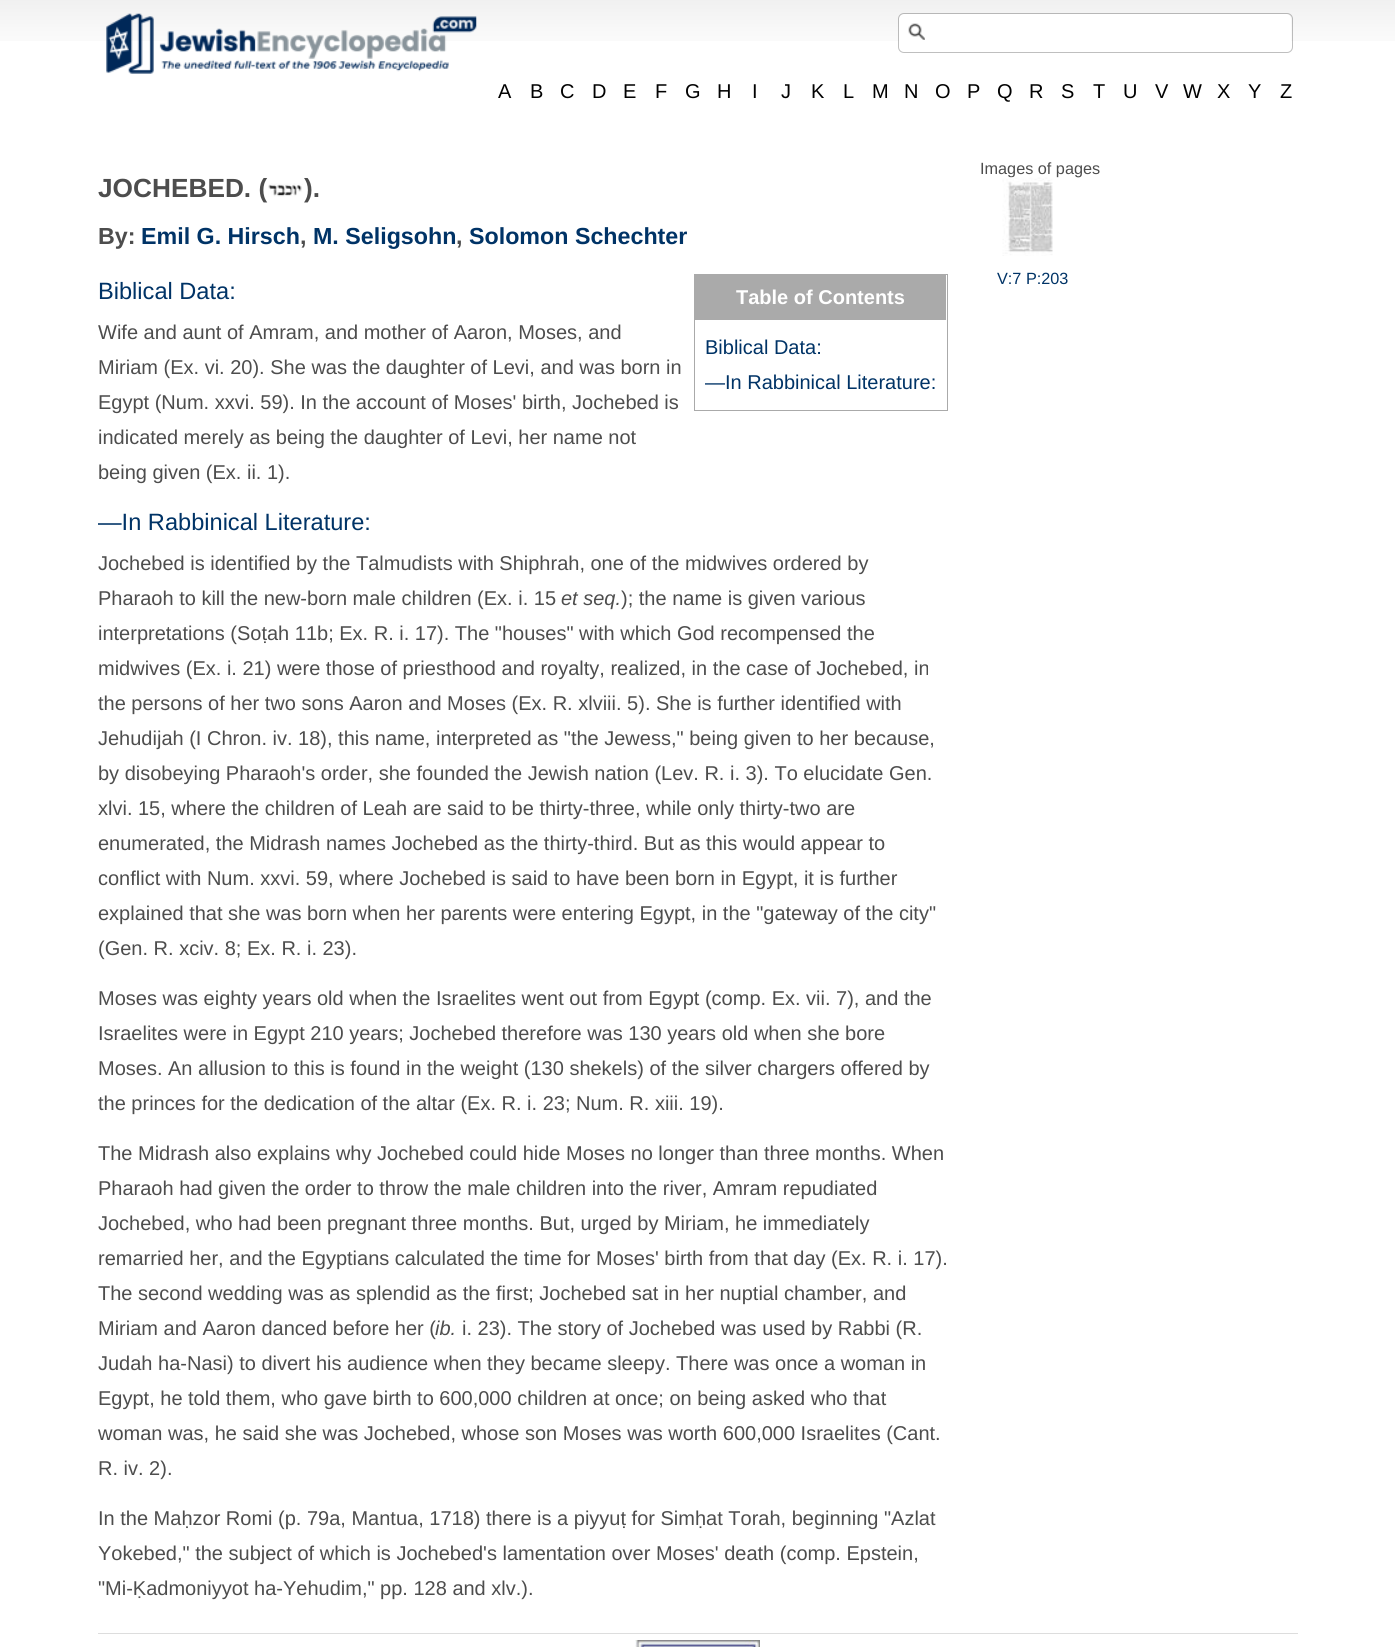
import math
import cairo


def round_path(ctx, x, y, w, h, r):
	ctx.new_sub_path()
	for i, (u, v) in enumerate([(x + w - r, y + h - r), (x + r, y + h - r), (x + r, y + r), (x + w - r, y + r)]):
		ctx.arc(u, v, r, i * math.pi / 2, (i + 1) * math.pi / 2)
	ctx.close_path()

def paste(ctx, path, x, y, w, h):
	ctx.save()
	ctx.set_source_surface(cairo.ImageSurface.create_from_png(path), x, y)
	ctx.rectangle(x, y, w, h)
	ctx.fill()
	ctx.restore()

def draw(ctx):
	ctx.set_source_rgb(1, 1, 1)
	ctx.paint()
	paste(ctx, 'media/1.png', 0, 0, 1395, 41)
	paste(ctx, 'media/2.png', 106, 13, 371, 61)
	ctx.set_source_rgb(1, 1, 1)
	round_path(ctx, 899, 14, 392, 37, 5)
	ctx.fill()
	paste(ctx, 'media/3.png', 908, 23, 17, 17)
	round_path(ctx, 898.5, 13.5, 394, 39, 5.5)
	ctx.set_source_rgba(0, 0, 0, 0.25)
	ctx.set_line_width(1)
	ctx.stroke()
	ctx.select_font_face('Liberation Sans')
	ctx.set_font_size(20)
	ctx.set_source_rgb(0.004, 0.004, 0.004)
	for x, y, s in [
		(498, 98, 'A'),
		(530, 98, 'B'),
		(560, 98, 'C'),
		(592, 98, 'D'),
		(623, 98, 'E'),
		(655, 98, 'F'),
		(685, 98, 'G'),
		(717, 98, 'H'),
		(752, 98, 'I'),
		(781, 98, 'J'),
		(811, 98, 'K'),
		(843, 98, 'L'),
		(872, 98, 'M'),
		(904, 98, 'N'),
		(935, 98, 'O'),
		(967, 98, 'P'),
		(997, 98, 'Q'),
		(1029, 98, 'R'),
		(1061, 98, 'S'),
		(1093, 98, 'T'),
		(1123, 98, 'U'),
		(1155, 98, 'V'),
		(1183, 98, 'W'),
		(1217, 98, 'X'),
		(1248, 98, 'Y'),
		(1280, 98, 'Z'),
	]:
		ctx.move_to(x, y)
		ctx.show_text(s)
	ctx.select_font_face('Liberation Sans', cairo.FONT_SLANT_NORMAL, cairo.FONT_WEIGHT_BOLD)
	ctx.set_font_size(26.25)
	ctx.set_source_rgb(0.302, 0.302, 0.302)
	ctx.move_to(98, 197)
	ctx.show_text('JOCHEBED. (')
	paste(ctx, 'media/4.png', 268, 183, 35, 14)
	ctx.move_to(304, 197)
	ctx.show_text(').')
	ctx.set_font_size(23.25)
	ctx.move_to(98, 244)
	ctx.show_text('By:')
	ctx.set_source_rgb(0, 0.2, 0.4)
	ctx.move_to(141, 244)
	ctx.show_text('Emil G. Hirsch')
	ctx.set_source_rgb(0.302, 0.302, 0.302)
	ctx.move_to(300, 244)
	ctx.show_text(',')
	ctx.set_source_rgb(0, 0.2, 0.4)
	ctx.move_to(313, 244)
	ctx.show_text('M. Seligsohn')
	ctx.set_source_rgb(0.302, 0.302, 0.302)
	ctx.move_to(456, 244)
	ctx.show_text(',')
	ctx.set_source_rgb(0, 0.2, 0.4)
	ctx.move_to(469, 244)
	ctx.show_text('Solomon Schechter')
	ctx.select_font_face('Liberation Sans')
	ctx.set_font_size(23.6)
	ctx.move_to(98, 299)
	ctx.show_text('Biblical Data:')
	ctx.rectangle(694.5, 274.5, 253, 136)
	ctx.set_source_rgb(0.667, 0.667, 0.667)
	ctx.stroke()
	ctx.rectangle(695, 275, 251, 45)
	ctx.fill()
	ctx.select_font_face('Liberation Sans', cairo.FONT_SLANT_NORMAL, cairo.FONT_WEIGHT_BOLD)
	ctx.set_font_size(20)
	ctx.set_source_rgb(1, 1, 1)
	ctx.move_to(736, 304)
	ctx.show_text('Table of Contents')
	ctx.select_font_face('Liberation Sans')
	ctx.set_source_rgb(0, 0.2, 0.4)
	ctx.move_to(705, 354)
	ctx.show_text('Biblical Data:')
	ctx.move_to(705, 389)
	ctx.show_text('—In Rabbinical Literature:')
	ctx.set_source_rgb(0.302, 0.302, 0.302)
	for x, y, s in [
		(98, 339, 'Wife and aunt of Amram, and mother of Aaron, Moses, and'),
		(98, 374, 'Miriam (Ex. vi. 20). She was the daughter of Levi, and was born in'),
		(98, 409, 'Egypt (Num. xxvi. 59). In the account of Moses\' birth, Jochebed is'),
		(98, 444, 'indicated merely as being the daughter of Levi, her name not'),
		(98, 479, 'being given (Ex. ii. 1).'),
	]:
		ctx.move_to(x, y)
		ctx.show_text(s)
	ctx.set_font_size(23.6)
	ctx.set_source_rgb(0, 0.2, 0.4)
	ctx.move_to(98, 530)
	ctx.show_text('—In Rabbinical Literature:')
	ctx.set_font_size(20)
	ctx.set_source_rgb(0.302, 0.302, 0.302)
	ctx.move_to(98, 570)
	ctx.show_text('Jochebed is identified by the Talmudists with Shiphrah, one of the midwives ordered by')
	ctx.move_to(98, 605)
	ctx.show_text('Pharaoh to kill the new-born male children (Ex. i. 15')
	ctx.select_font_face('Liberation Sans', cairo.FONT_SLANT_ITALIC)
	ctx.move_to(561, 605)
	ctx.show_text('et seq.')
	ctx.select_font_face('Liberation Sans')
	for x, y, s in [
		(621, 605, '); the name is given various'),
		(98, 640, 'interpretations (Soṭah 11b; Ex. R. i. 17). The "houses" with which God recompensed the'),
		(98, 675, 'midwives (Ex. i. 21) were those of priesthood and royalty, realized, in the case of Jochebed, in'),
		(98, 710, 'the persons of her two sons Aaron and Moses (Ex. R. xlviii. 5). She is further identified with'),
		(98, 745, 'Jehudijah (I Chron. iv. 18), this name, interpreted as "the Jewess," being given to her because,'),
		(98, 780, 'by disobeying Pharaoh\'s order, she founded the Jewish nation (Lev. R. i. 3). To elucidate Gen.'),
		(98, 815, 'xlvi. 15, where the children of Leah are said to be thirty-three, while only thirty-two are'),
		(98, 850, 'enumerated, the Midrash names Jochebed as the thirty-third. But as this would appear to'),
		(98, 885, 'conflict with Num. xxvi. 59, where Jochebed is said to have been born in Egypt, it is further'),
		(98, 920, 'explained that she was born when her parents were entering Egypt, in the "gateway of the city"'),
		(98, 955, '(Gen. R. xciv. 8; Ex. R. i. 23).'),
		(98, 1005, 'Moses was eighty years old when the Israelites went out from Egypt (comp. Ex. vii. 7), and the'),
		(98, 1040, 'Israelites were in Egypt 210 years; Jochebed therefore was 130 years old when she bore'),
		(98, 1075, 'Moses. An allusion to this is found in the weight (130 shekels) of the silver chargers offered by'),
		(98, 1110, 'the princes for the dedication of the altar (Ex. R. i. 23; Num. R. xiii. 19).'),
		(98, 1160, 'The Midrash also explains why Jochebed could hide Moses no longer than three months. When'),
		(98, 1195, 'Pharaoh had given the order to throw the male children into the river, Amram repudiated'),
		(98, 1230, 'Jochebed, who had been pregnant three months. But, urged by Miriam, he immediately'),
		(98, 1265, 'remarried her, and the Egyptians calculated the time for Moses\' birth from that day (Ex. R. i. 17).'),
		(98, 1300, 'The second wedding was as splendid as the first; Jochebed sat in her nuptial chamber, and'),
		(98, 1335, 'Miriam and Aaron danced before her ('),
	]:
		ctx.move_to(x, y)
		ctx.show_text(s)
	ctx.select_font_face('Liberation Sans', cairo.FONT_SLANT_ITALIC)
	ctx.move_to(435, 1335)
	ctx.show_text('ib.')
	ctx.select_font_face('Liberation Sans')
	for x, y, s in [
		(462, 1335, 'i. 23). The story of Jochebed was used by Rabbi (R.'),
		(98, 1370, 'Judah ha-Nasi) to divert his audience when they became sleepy. There was once a woman in'),
		(98, 1405, 'Egypt, he told them, who gave birth to 600,000 children at once; on being asked who that'),
		(98, 1440, 'woman was, he said she was Jochebed, whose son Moses was worth 600,000 Israelites (Cant.'),
		(98, 1475, 'R. iv. 2).'),
		(98, 1525, 'In the Maḥzor Romi (p. 79a, Mantua, 1718) there is a piyyuṭ for Simḥat Torah, beginning "Azlat'),
		(98, 1560, 'Yokebed," the subject of which is Jochebed\'s lamentation over Moses\' death (comp. Epstein,'),
		(98, 1595, '"Mi-Ḳadmoniyyot ha-Yehudim," pp. 128 and xlv.).'),
	]:
		ctx.move_to(x, y)
		ctx.show_text(s)
	ctx.set_font_size(16.25)
	ctx.move_to(980, 174)
	ctx.show_text('Images of pages')
	paste(ctx, 'media/5.png', 1002, 177, 57, 79)
	ctx.set_source_rgb(0, 0.2, 0.4)
	ctx.move_to(997, 284)
	ctx.show_text('V:7 P:203')
	ctx.set_source_rgb(0.867, 0.867, 0.867)
	ctx.rectangle(98, 1633, 1200, 1)
	ctx.fill()
	paste(ctx, 'media/6.png', 635, 1640, 125, 7)


surface = cairo.ImageSurface(cairo.FORMAT_RGB24, 1395, 1647)
ctx = cairo.Context(surface)
options = cairo.FontOptions()
options.set_hint_metrics(cairo.HINT_METRICS_OFF)
options.set_hint_style(cairo.HINT_STYLE_NONE)
ctx.set_font_options(options)
ctx.set_miter_limit(4)
draw(ctx)
surface.write_to_png('image.png')
